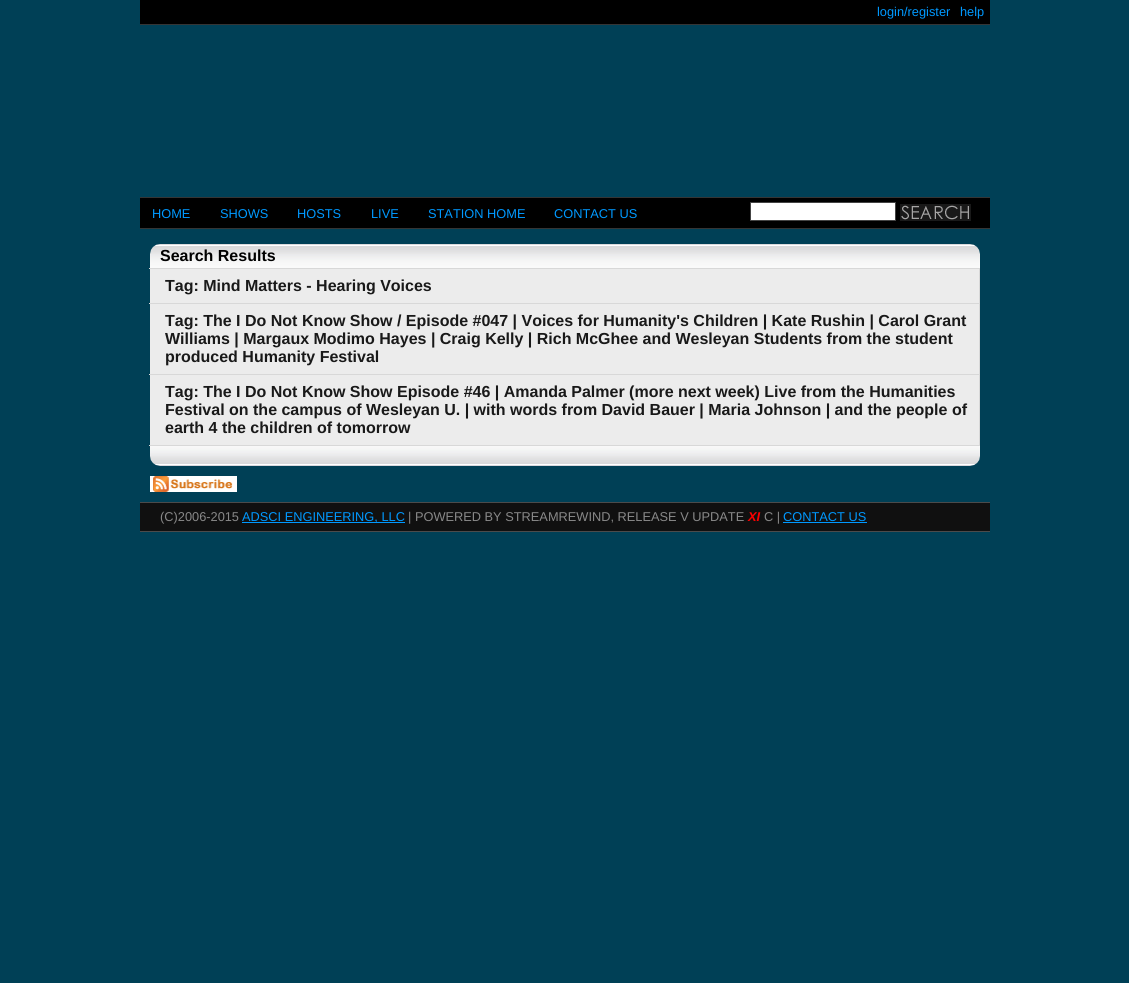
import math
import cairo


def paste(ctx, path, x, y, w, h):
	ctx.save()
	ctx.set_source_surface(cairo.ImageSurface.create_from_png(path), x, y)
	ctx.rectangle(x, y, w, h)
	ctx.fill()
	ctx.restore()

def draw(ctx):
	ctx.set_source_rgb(0, 0.251, 0.337)
	ctx.paint()
	ctx.set_source_rgb(0, 0, 0)
	ctx.rectangle(140, 0, 850, 24)
	ctx.fill()
	ctx.set_source_rgb(0.208, 0.208, 0.208)
	ctx.rectangle(140, 24, 850, 1)
	ctx.fill()
	ctx.select_font_face('Liberation Sans')
	ctx.set_font_size(12.8)
	ctx.set_source_rgb(0, 0.6, 1)
	ctx.move_to(877, 16)
	ctx.show_text('login/register')
	ctx.move_to(960, 16)
	ctx.show_text('help')
	ctx.set_source_rgb(0, 0, 0)
	ctx.rectangle(140, 198, 850, 30)
	ctx.fill()
	ctx.set_source_rgb(0.208, 0.208, 0.208)
	ctx.rectangle(140, 197, 850, 1)
	ctx.rectangle(140, 228, 850, 1)
	ctx.fill()
	ctx.set_source_rgb(0, 0.6, 1)
	for x, y, s in [
		(152, 218, 'HOME'),
		(220, 218, 'SHOWS'),
		(297, 218, 'HOSTS'),
		(371, 218, 'LIVE'),
		(428, 218, 'STATION HOME'),
		(554, 218, 'CONTACT US'),
	]:
		ctx.move_to(x, y)
		ctx.show_text(s)
	ctx.set_source_rgb(1, 1, 1)
	ctx.rectangle(750.5, 202.5, 145, 18)
	ctx.fill_preserve()
	ctx.set_source_rgb(0.267, 0.267, 0.267)
	ctx.set_line_width(1)
	ctx.stroke()
	paste(ctx, 'media/1.png', 900, 204, 71, 17)
	paste(ctx, 'media/2.png', 150, 244, 830, 24)
	ctx.select_font_face('Liberation Sans', cairo.FONT_SLANT_NORMAL, cairo.FONT_WEIGHT_BOLD)
	ctx.set_font_size(16)
	ctx.set_source_rgb(0, 0, 0)
	ctx.move_to(160, 261)
	ctx.show_text('Search Results')
	ctx.set_source_rgb(0.922, 0.922, 0.922)
	ctx.rectangle(150, 269, 829, 34)
	ctx.fill()
	ctx.set_source_rgb(0.847, 0.847, 0.847)
	ctx.rectangle(149, 268, 831, 1)
	ctx.rectangle(149, 303, 831, 1)
	ctx.rectangle(149, 374, 831, 1)
	ctx.rectangle(979, 374, 1, 72)
	ctx.rectangle(979, 303, 1, 72)
	ctx.rectangle(979, 268, 1, 36)
	ctx.fill()
	ctx.set_source_rgb(0.098, 0.098, 0.098)
	ctx.move_to(165, 291)
	ctx.show_text('Tag: Mind Matters - Hearing Voices')
	ctx.set_source_rgb(0.922, 0.922, 0.922)
	ctx.rectangle(150, 304, 829, 70)
	ctx.fill()
	ctx.set_source_rgb(0.098, 0.098, 0.098)
	for x, y, s in [
		(165, 326, 'Tag: The I Do Not Know Show / Episode #047 | Voices for Humanity\'s Children | Kate Rushin | Carol Grant'),
		(165, 344, 'Williams | Margaux Modimo Hayes | Craig Kelly | Rich McGhee and Wesleyan Students from the student'),
		(165, 362, 'produced Humanity Festival'),
	]:
		ctx.move_to(x, y)
		ctx.show_text(s)
	ctx.set_source_rgb(0.922, 0.922, 0.922)
	ctx.rectangle(150, 375, 829, 70)
	ctx.fill()
	ctx.set_source_rgb(0.847, 0.847, 0.847)
	ctx.rectangle(149, 445, 831, 1)
	ctx.fill()
	ctx.set_source_rgb(0.098, 0.098, 0.098)
	for x, y, s in [
		(165, 397, 'Tag: The I Do Not Know Show Episode #46 | Amanda Palmer (more next week) Live from the Humanities'),
		(165, 415, 'Festival on the campus of Wesleyan U. | with words from David Bauer | Maria Johnson | and the people of'),
		(165, 433, 'earth 4 the children of tomorrow'),
	]:
		ctx.move_to(x, y)
		ctx.show_text(s)
	paste(ctx, 'media/3.png', 150, 446, 830, 20)
	paste(ctx, 'media/4.png', 150, 476, 87, 16)
	ctx.set_source_rgb(0.063, 0.063, 0.063)
	ctx.rectangle(140, 503, 850, 28)
	ctx.fill()
	ctx.set_source_rgb(0.294, 0.294, 0.294)
	ctx.rectangle(140, 502, 850, 1)
	ctx.rectangle(140, 531, 850, 1)
	ctx.fill()
	ctx.select_font_face('Liberation Sans')
	ctx.set_font_size(12.8)
	ctx.set_source_rgb(0.533, 0.533, 0.533)
	ctx.move_to(160, 521)
	ctx.show_text('(C)2006-2015')
	ctx.set_source_rgb(0, 0.6, 1)
	ctx.rectangle(242, 522, 163, 1)
	ctx.fill()
	ctx.move_to(242, 521)
	ctx.show_text('ADSCI ENGINEERING, LLC')
	ctx.set_source_rgb(0.533, 0.533, 0.533)
	ctx.move_to(408, 521)
	ctx.show_text('| POWERED BY STREAMREWIND, RELEASE V UPDATE')
	ctx.select_font_face('Liberation Sans', cairo.FONT_SLANT_ITALIC, cairo.FONT_WEIGHT_BOLD)
	ctx.set_source_rgb(1, 0, 0)
	ctx.move_to(748, 521)
	ctx.show_text('XI')
	ctx.select_font_face('Liberation Sans')
	ctx.set_source_rgb(0.533, 0.533, 0.533)
	ctx.move_to(764, 521)
	ctx.show_text('C |')
	ctx.set_source_rgb(0, 0.6, 1)
	ctx.move_to(783, 521)
	ctx.show_text('CONTACT US')
	ctx.rectangle(783, 522, 84, 1)
	ctx.fill()


surface = cairo.ImageSurface(cairo.FORMAT_RGB24, 1129, 983)
ctx = cairo.Context(surface)
options = cairo.FontOptions()
options.set_hint_metrics(cairo.HINT_METRICS_OFF)
options.set_hint_style(cairo.HINT_STYLE_NONE)
ctx.set_font_options(options)
ctx.set_miter_limit(4)
draw(ctx)
surface.write_to_png('image.png')
